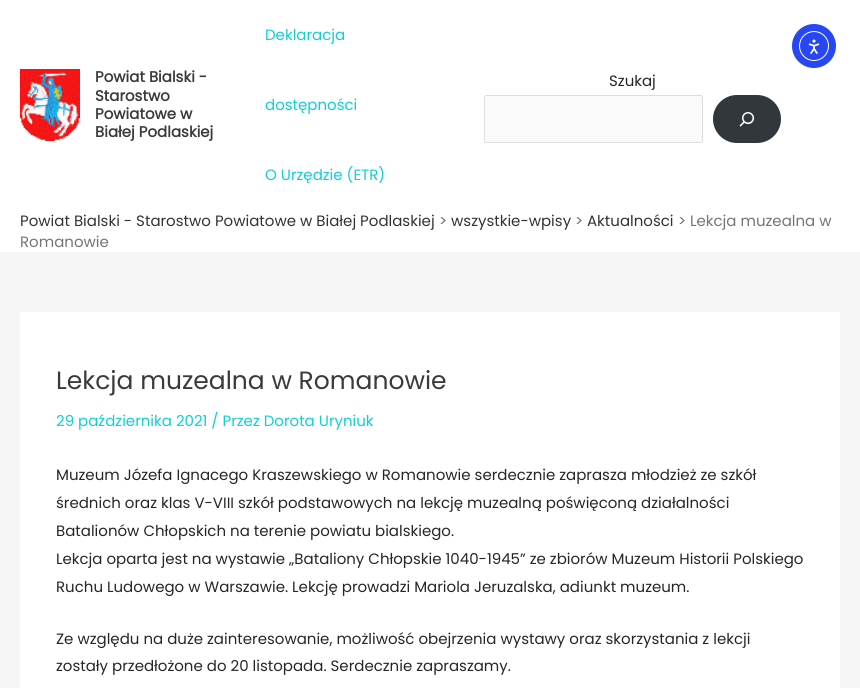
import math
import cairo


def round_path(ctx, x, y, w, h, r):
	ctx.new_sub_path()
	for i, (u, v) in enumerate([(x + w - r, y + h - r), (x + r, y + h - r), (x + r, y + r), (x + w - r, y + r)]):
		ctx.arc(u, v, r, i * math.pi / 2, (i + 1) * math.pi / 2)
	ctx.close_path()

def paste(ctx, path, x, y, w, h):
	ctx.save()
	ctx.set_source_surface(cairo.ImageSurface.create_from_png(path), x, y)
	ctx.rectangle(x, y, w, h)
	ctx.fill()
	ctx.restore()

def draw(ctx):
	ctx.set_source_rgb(0.961, 0.961, 0.961)
	ctx.paint()
	ctx.set_source_rgb(1, 1, 1)
	ctx.rectangle(0, 0, 860, 252)
	ctx.fill()
	ctx.set_source_rgb(0.157, 0.278, 0.953)
	ctx.arc(814, 46, 22, 0, 2 * math.pi)
	ctx.fill()
	ctx.arc(814, 46, 14.5, 0, 2 * math.pi)
	ctx.set_source_rgb(1, 1, 1)
	ctx.set_line_width(1)
	ctx.stroke()
	paste(ctx, 'media/1.png', 808, 39, 12, 15)
	paste(ctx, 'media/2.png', 20, 69, 60, 72)
	ctx.select_font_face('Poppins', cairo.FONT_SLANT_NORMAL, cairo.FONT_WEIGHT_BOLD)
	ctx.set_font_size(15)
	ctx.set_source_rgb(0.227, 0.227, 0.227)
	for x, y, s in [
		(95, 82, 'Powiat Bialski -'),
		(95, 101, 'Starostwo'),
		(95, 119, 'Powiatowe w'),
		(95, 137, 'Białej Podlaskiej'),
	]:
		ctx.move_to(x, y)
		ctx.show_text(s)
	ctx.select_font_face('Poppins')
	ctx.set_source_rgb(0.059, 0.808, 0.847)
	for x, y, s in [
		(265, 40, 'Deklaracja'),
		(265, 110, 'dostępności'),
		(265, 180, 'O Urzędzie (ETR)'),
	]:
		ctx.move_to(x, y)
		ctx.show_text(s)
	ctx.set_source_rgb(0.149, 0.149, 0.149)
	ctx.move_to(609, 86)
	ctx.show_text('Szukaj')
	ctx.set_source_rgb(0.98, 0.98, 0.98)
	round_path(ctx, 484.5, 95.5, 218, 47, 1.5)
	ctx.fill_preserve()
	ctx.set_source_rgb(0.867, 0.867, 0.867)
	ctx.stroke()
	ctx.set_source_rgb(0.196, 0.216, 0.235)
	round_path(ctx, 713, 95, 68, 48, 24)
	ctx.fill()
	paste(ctx, 'media/3.png', 739, 112, 16, 15)
	ctx.set_source_rgb(0.2, 0.2, 0.2)
	ctx.move_to(20, 226)
	ctx.show_text('Powiat Bialski - Starostwo Powiatowe w Białej Podlaskiej')
	ctx.set_source_rgb(0.427, 0.427, 0.427)
	ctx.move_to(439, 226)
	ctx.show_text('>')
	ctx.set_source_rgb(0.2, 0.2, 0.2)
	ctx.move_to(451, 226)
	ctx.show_text('wszystkie-wpisy')
	ctx.set_source_rgb(0.427, 0.427, 0.427)
	ctx.move_to(575, 226)
	ctx.show_text('>')
	ctx.set_source_rgb(0.2, 0.2, 0.2)
	ctx.move_to(587, 226)
	ctx.show_text('Aktualności')
	ctx.set_source_rgb(0.427, 0.427, 0.427)
	ctx.move_to(678, 226)
	ctx.show_text('>')
	ctx.set_source_rgb(0.459, 0.459, 0.459)
	ctx.move_to(690, 226)
	ctx.show_text('Lekcja muzealna w')
	ctx.move_to(20, 247)
	ctx.show_text('Romanowie')
	ctx.set_source_rgb(1, 1, 1)
	ctx.rectangle(20, 312, 820, 376)
	ctx.fill()
	ctx.set_font_size(25)
	ctx.set_source_rgb(0.227, 0.227, 0.227)
	ctx.move_to(56, 389)
	ctx.show_text('Lekcja muzealna w Romanowie')
	ctx.set_font_size(15)
	ctx.set_source_rgb(0.059, 0.808, 0.847)
	ctx.move_to(56, 426)
	ctx.show_text('29 października 2021 / Przez Dorota Uryniuk')
	ctx.set_source_rgb(0.149, 0.149, 0.149)
	for x, y, s in [
		(56, 480, 'Muzeum Józefa Ignacego Kraszewskiego w Romanowie serdecznie zaprasza młodzież ze szkół'),
		(56, 508, 'średnich oraz klas V-VIII szkół podstawowych na lekcję muzealną poświęconą działalności'),
		(56, 536, 'Batalionów Chłopskich na terenie powiatu bialskiego.'),
		(56, 564, 'Lekcja oparta jest na wystawie „Bataliony Chłopskie 1040-1945” ze zbiorów Muzeum Historii Polskiego'),
		(56, 592, 'Ruchu Ludowego w Warszawie. Lekcję prowadzi Mariola Jeruzalska, adiunkt muzeum.'),
		(56, 644, 'Ze względu na duże zainteresowanie, możliwość obejrzenia wystawy oraz skorzystania z lekcji'),
		(56, 671, 'zostały przedłożone do 20 listopada. Serdecznie zapraszamy.'),
	]:
		ctx.move_to(x, y)
		ctx.show_text(s)


surface = cairo.ImageSurface(cairo.FORMAT_RGB24, 860, 688)
ctx = cairo.Context(surface)
options = cairo.FontOptions()
options.set_hint_metrics(cairo.HINT_METRICS_OFF)
options.set_hint_style(cairo.HINT_STYLE_NONE)
ctx.set_font_options(options)
ctx.set_miter_limit(4)
draw(ctx)
surface.write_to_png('image.png')
